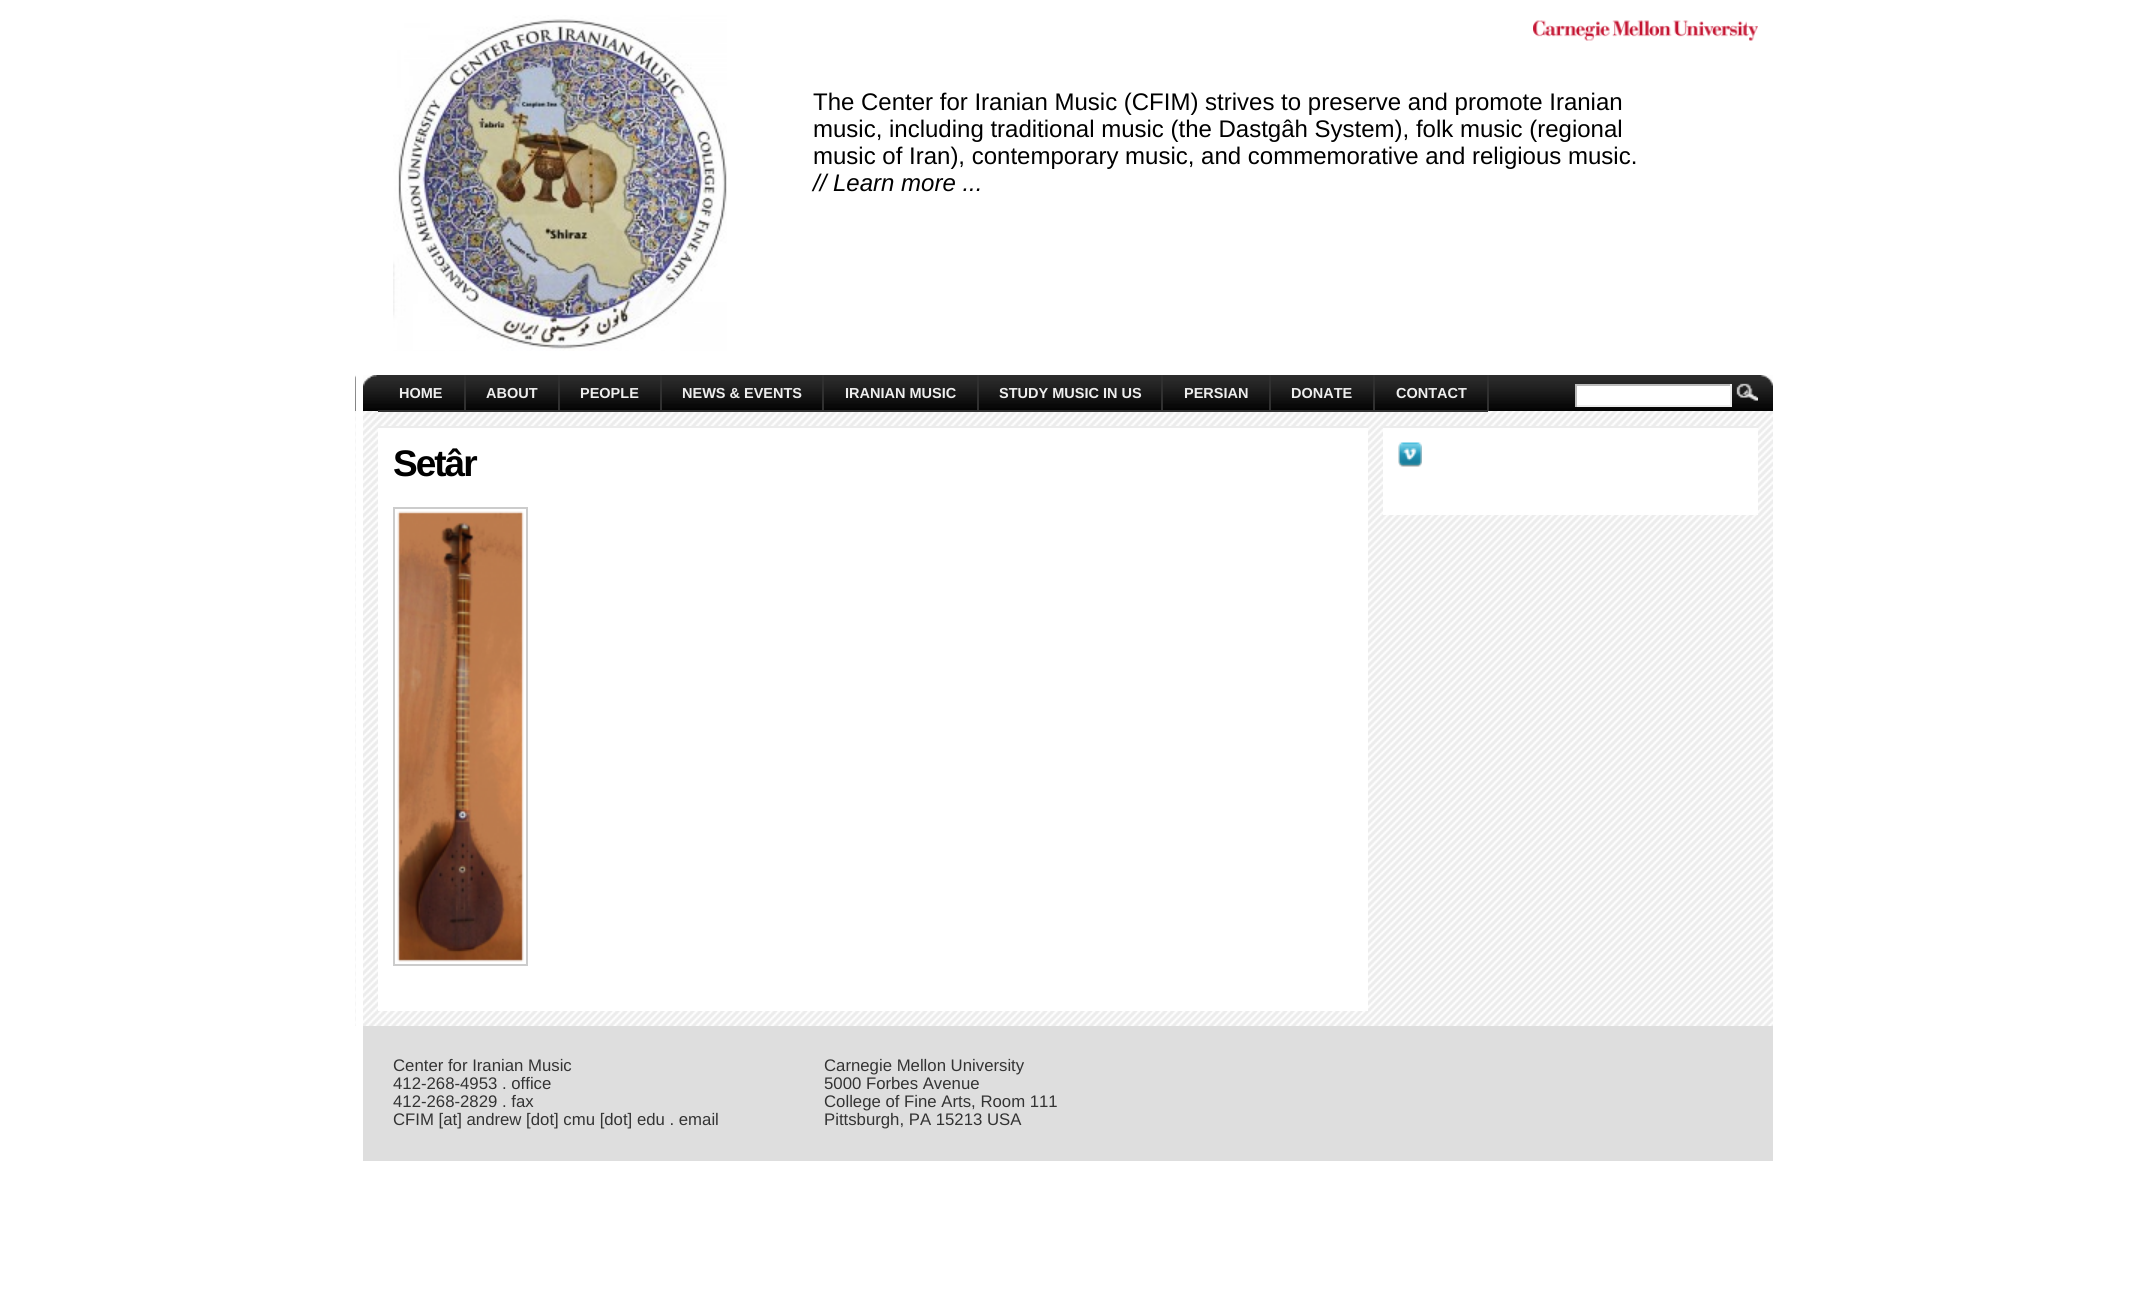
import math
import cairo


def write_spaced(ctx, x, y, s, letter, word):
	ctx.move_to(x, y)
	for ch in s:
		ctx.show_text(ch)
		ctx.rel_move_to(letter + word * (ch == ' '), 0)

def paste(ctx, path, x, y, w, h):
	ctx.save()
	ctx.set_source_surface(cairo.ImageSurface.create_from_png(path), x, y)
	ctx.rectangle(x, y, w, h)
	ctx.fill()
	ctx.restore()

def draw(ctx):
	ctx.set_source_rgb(1, 1, 1)
	ctx.paint()
	paste(ctx, 'media/1.png', 393, 15, 334, 336)
	paste(ctx, 'media/2.png', 1533, 20, 225, 21)
	ctx.select_font_face('Liberation Sans')
	ctx.set_font_size(24)
	ctx.set_source_rgb(0, 0, 0)
	for x, y, s in [
		(813, 110, 'The Center for Iranian Music (CFIM) strives to preserve and promote Iranian'),
		(813, 137, 'music, including traditional music (the Dastgâh System), folk music (regional'),
		(813, 164, 'music of Iran), contemporary music, and commemorative and religious music.'),
	]:
		ctx.move_to(x, y)
		ctx.show_text(s)
	ctx.select_font_face('Liberation Sans', cairo.FONT_SLANT_ITALIC)
	ctx.move_to(813, 191)
	ctx.show_text('// Learn more ...')
	paste(ctx, 'media/3.png', 355, 375, 1418, 36)
	ctx.set_source_rgb(1, 1, 1)
	ctx.rectangle(356, 375, 7, 36)
	ctx.fill()
	ctx.set_source_rgb(0.188, 0.188, 0.188)
	ctx.rectangle(464, 375, 2, 36)
	ctx.fill()
	paste(ctx, 'media/5.png', 355, 411, 1418, 615)
	ctx.rectangle(378, 410, 87, 2)
	ctx.fill()
	ctx.select_font_face('Liberation Sans', cairo.FONT_SLANT_NORMAL, cairo.FONT_WEIGHT_BOLD)
	ctx.set_font_size(14.5)
	ctx.set_source_rgb(0.933, 0.933, 0.933)
	ctx.move_to(399, 398)
	ctx.show_text('HOME')
	ctx.set_source_rgb(0.188, 0.188, 0.188)
	ctx.rectangle(558, 375, 2, 36)
	ctx.fill()
	ctx.rectangle(465, 410, 95, 2)
	ctx.fill()
	ctx.set_source_rgb(0.933, 0.933, 0.933)
	ctx.move_to(486, 398)
	ctx.show_text('ABOUT')
	ctx.set_source_rgb(0.188, 0.188, 0.188)
	ctx.rectangle(660, 375, 2, 36)
	ctx.fill()
	ctx.rectangle(560, 410, 102, 2)
	ctx.fill()
	ctx.set_source_rgb(0.933, 0.933, 0.933)
	ctx.move_to(580, 398)
	ctx.show_text('PEOPLE')
	ctx.set_source_rgb(0.188, 0.188, 0.188)
	ctx.rectangle(822, 375, 2, 36)
	ctx.fill()
	ctx.rectangle(662, 410, 162, 2)
	ctx.fill()
	ctx.set_source_rgb(0.933, 0.933, 0.933)
	ctx.move_to(682, 398)
	ctx.show_text('NEWS & EVENTS')
	ctx.set_source_rgb(0.188, 0.188, 0.188)
	ctx.rectangle(977, 375, 2, 36)
	ctx.fill()
	ctx.rectangle(824, 410, 154, 2)
	ctx.fill()
	ctx.set_source_rgb(0.933, 0.933, 0.933)
	ctx.move_to(845, 398)
	ctx.show_text('IRANIAN MUSIC')
	ctx.set_source_rgb(0.188, 0.188, 0.188)
	ctx.rectangle(1161, 375, 2, 36)
	ctx.fill()
	ctx.rectangle(978, 410, 185, 2)
	ctx.fill()
	ctx.set_source_rgb(0.933, 0.933, 0.933)
	ctx.move_to(999, 398)
	ctx.show_text('STUDY MUSIC IN US')
	ctx.set_source_rgb(0.188, 0.188, 0.188)
	ctx.rectangle(1269, 375, 2, 36)
	ctx.fill()
	ctx.rectangle(1163, 410, 108, 2)
	ctx.fill()
	ctx.set_source_rgb(0.933, 0.933, 0.933)
	ctx.move_to(1184, 398)
	ctx.show_text('PERSIAN')
	ctx.set_source_rgb(0.188, 0.188, 0.188)
	ctx.rectangle(1373, 375, 2, 36)
	ctx.fill()
	ctx.rectangle(1271, 410, 103, 2)
	ctx.fill()
	ctx.set_source_rgb(0.933, 0.933, 0.933)
	ctx.move_to(1291, 398)
	ctx.show_text('DONATE')
	ctx.set_source_rgb(0.188, 0.188, 0.188)
	ctx.rectangle(1487, 375, 2, 36)
	ctx.fill()
	ctx.rectangle(1374, 410, 114, 2)
	ctx.fill()
	ctx.set_source_rgb(0.933, 0.933, 0.933)
	ctx.move_to(1396, 398)
	ctx.show_text('CONTACT')
	ctx.set_source_rgb(1, 1, 1)
	ctx.rectangle(1577, 386, 153, 19)
	ctx.fill()
	ctx.set_source_rgb(0.733, 0.733, 0.733)
	ctx.rectangle(1575, 384, 156, 2)
	ctx.fill()
	ctx.set_source_rgb(0.933, 0.933, 0.933)
	ctx.rectangle(1730, 384, 2, 23)
	ctx.rectangle(1575, 405, 156, 2)
	ctx.fill()
	ctx.set_source_rgb(0.733, 0.733, 0.733)
	ctx.rectangle(1575, 384, 2, 23)
	ctx.fill()
	paste(ctx, 'media/4.png', 1736, 383, 22, 18)
	ctx.set_source_rgb(1, 1, 1)
	ctx.rectangle(356, 411, 7, 615)
	ctx.rectangle(378, 428, 990, 583)
	ctx.fill()
	ctx.set_source_rgb(0.925, 0.925, 0.925)
	ctx.rectangle(378, 426, 990, 2)
	ctx.fill()
	ctx.set_font_size(37)
	ctx.set_source_rgb(0, 0, 0)
	write_spaced(ctx, 393, 476, 'Setâr', -2, 0)
	ctx.rectangle(394, 508, 133, 457)
	ctx.set_source_rgb(0.8, 0.8, 0.8)
	ctx.stroke()
	paste(ctx, 'media/6.png', 397, 511, 127, 451)
	ctx.set_source_rgb(1, 1, 1)
	ctx.rectangle(1383, 428, 375, 87)
	ctx.fill()
	ctx.set_source_rgb(0.925, 0.925, 0.925)
	ctx.rectangle(1383, 426, 375, 2)
	ctx.fill()
	paste(ctx, 'media/7.png', 1398, 442, 24, 25)
	ctx.set_source_rgb(0.871, 0.871, 0.871)
	ctx.rectangle(363, 1026, 1410, 135)
	ctx.fill()
	ctx.select_font_face('Liberation Sans')
	ctx.set_font_size(16.75)
	ctx.set_source_rgb(0.2, 0.2, 0.2)
	for x, y, s in [
		(393, 1071, 'Center for Iranian Music'),
		(393, 1089, '412-268-4953 . office'),
		(393, 1107, '412-268-2829 . fax'),
		(393, 1125, 'CFIM [at] andrew [dot] cmu [dot] edu . email'),
		(824, 1071, 'Carnegie Mellon University'),
		(824, 1089, '5000 Forbes Avenue'),
		(824, 1107, 'College of Fine Arts, Room 111'),
		(824, 1125, 'Pittsburgh, PA 15213 USA'),
	]:
		ctx.move_to(x, y)
		ctx.show_text(s)


surface = cairo.ImageSurface(cairo.FORMAT_RGB24, 2136, 1311)
ctx = cairo.Context(surface)
options = cairo.FontOptions()
options.set_hint_metrics(cairo.HINT_METRICS_OFF)
options.set_hint_style(cairo.HINT_STYLE_NONE)
ctx.set_font_options(options)
ctx.set_miter_limit(4)
draw(ctx)
surface.write_to_png('image.png')
